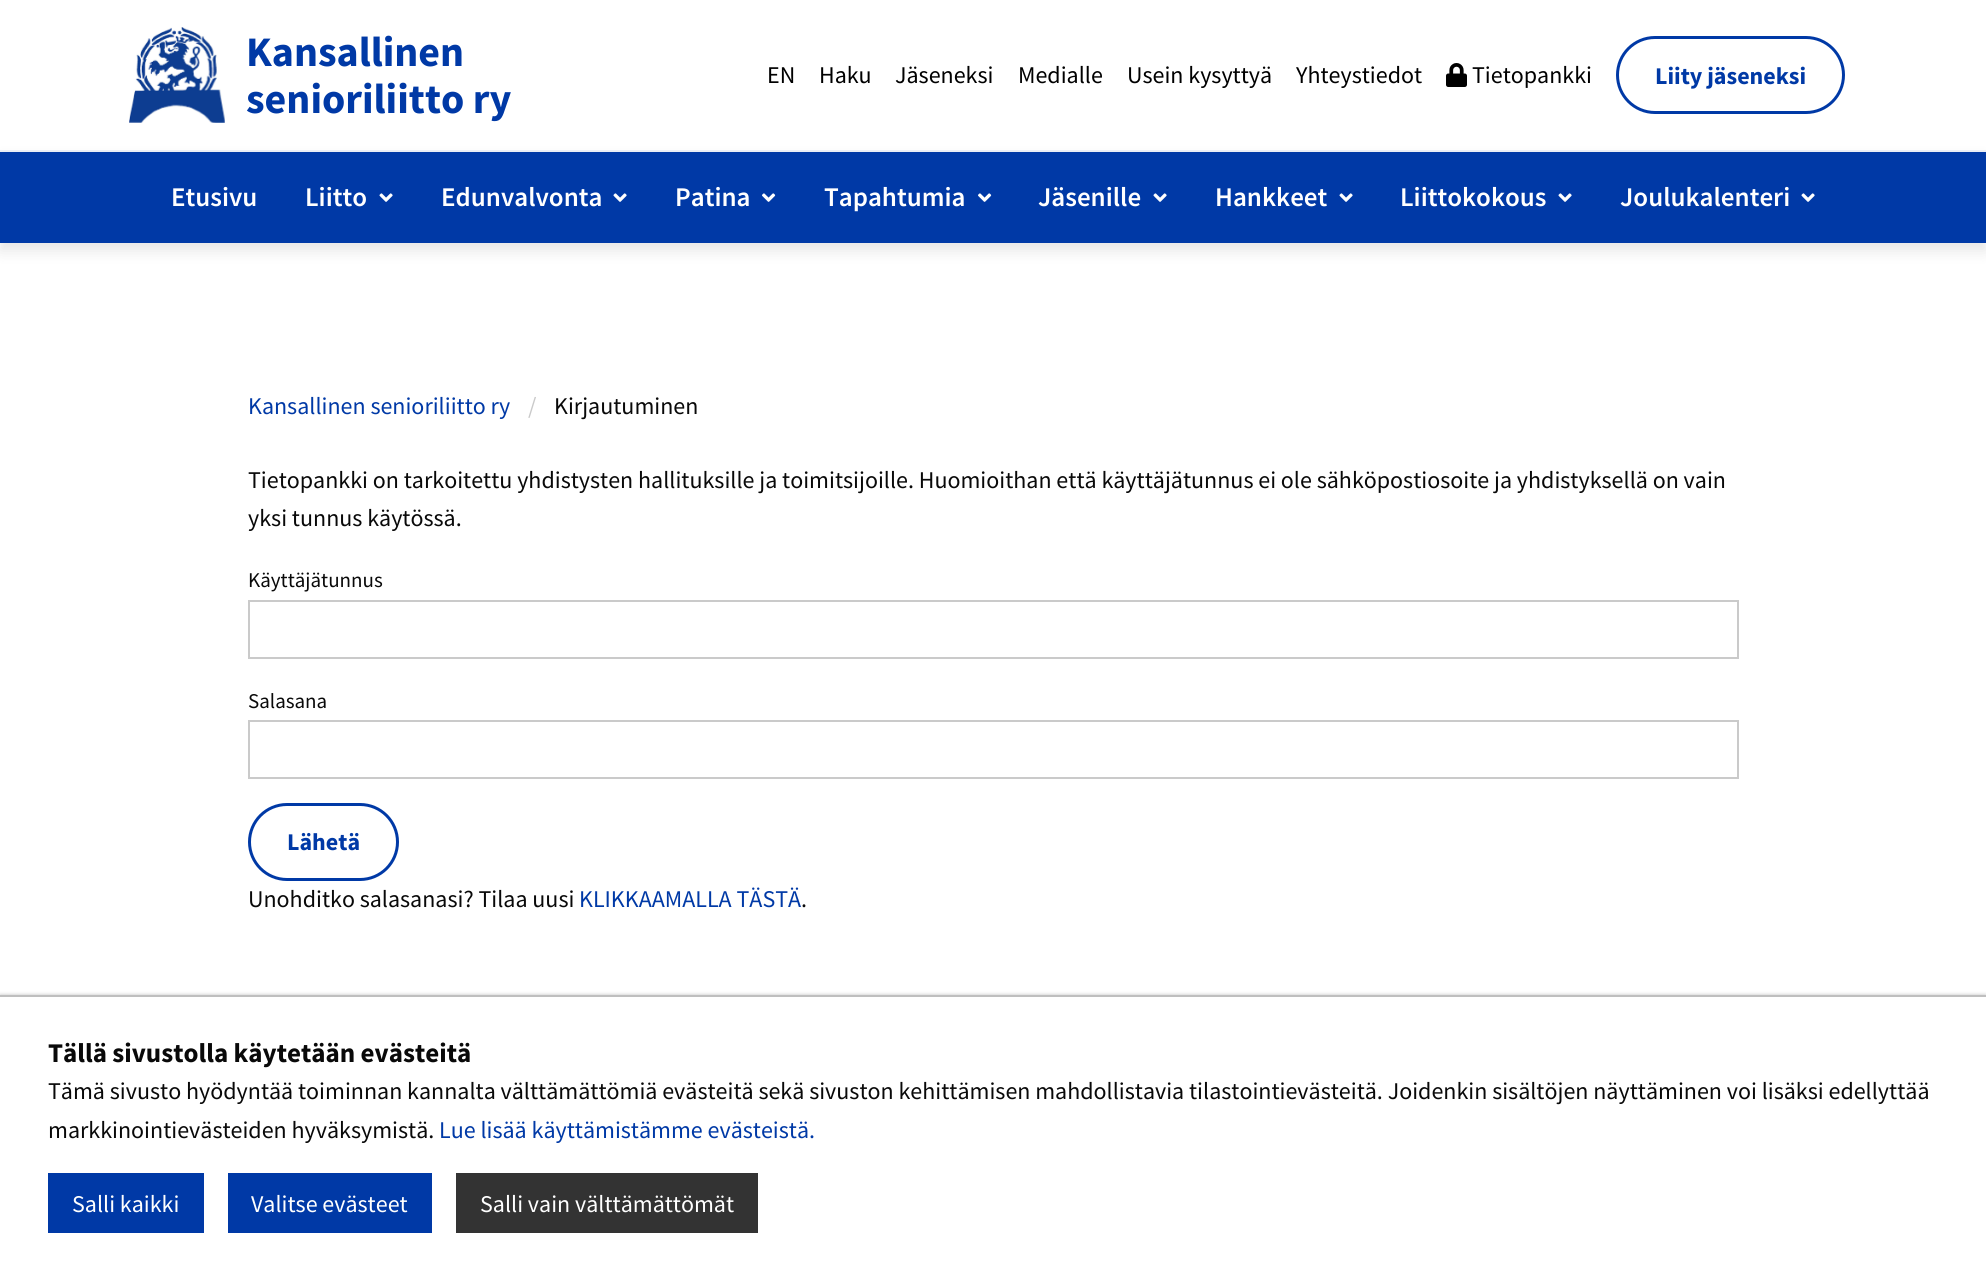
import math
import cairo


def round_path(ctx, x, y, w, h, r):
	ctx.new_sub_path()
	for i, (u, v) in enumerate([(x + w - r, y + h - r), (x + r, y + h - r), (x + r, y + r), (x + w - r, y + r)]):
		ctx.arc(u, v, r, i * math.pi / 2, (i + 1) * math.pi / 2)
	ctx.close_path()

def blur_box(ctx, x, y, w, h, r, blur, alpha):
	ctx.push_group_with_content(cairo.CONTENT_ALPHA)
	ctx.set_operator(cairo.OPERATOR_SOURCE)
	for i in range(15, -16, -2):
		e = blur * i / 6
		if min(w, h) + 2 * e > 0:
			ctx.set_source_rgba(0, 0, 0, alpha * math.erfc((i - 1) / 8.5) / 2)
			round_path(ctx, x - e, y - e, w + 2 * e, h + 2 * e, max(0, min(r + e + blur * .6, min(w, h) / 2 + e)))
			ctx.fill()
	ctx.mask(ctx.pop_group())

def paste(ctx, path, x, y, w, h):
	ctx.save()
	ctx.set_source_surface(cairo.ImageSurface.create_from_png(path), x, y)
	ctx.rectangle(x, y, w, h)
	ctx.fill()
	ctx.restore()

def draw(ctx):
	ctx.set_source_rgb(1, 1, 1)
	ctx.paint()
	ctx.set_source_rgb(0.929, 0.945, 0.976)
	ctx.rectangle(0, 150, 1986, 2)
	ctx.fill()
	paste(ctx, 'media/1.png', 129, 27, 96, 96)
	ctx.select_font_face('Source Sans Pro', cairo.FONT_SLANT_NORMAL, cairo.FONT_WEIGHT_BOLD)
	ctx.set_font_size(42)
	ctx.set_source_rgb(0, 0.224, 0.651)
	ctx.move_to(246, 66)
	ctx.show_text('Kansallinen')
	ctx.move_to(246, 113)
	ctx.show_text('senioriliitto ry')
	ctx.select_font_face('Source Sans Pro')
	ctx.set_font_size(24)
	ctx.set_source_rgb(0, 0, 0)
	for x, y, s in [
		(767, 83, 'EN'),
		(819, 83, 'Haku'),
		(895, 83, 'Jäseneksi'),
		(1018, 83, 'Medialle'),
		(1127, 83, 'Usein kysyttyä'),
		(1296, 83, 'Yhteystiedot'),
	]:
		ctx.move_to(x, y)
		ctx.show_text(s)
	paste(ctx, 'media/2.png', 1446, 63, 21, 24)
	ctx.move_to(1472, 83)
	ctx.show_text('Tietopankki')
	round_path(ctx, 1617.5, 37.5, 226, 75, 37.5)
	ctx.set_source_rgb(0, 0.224, 0.651)
	ctx.set_line_width(3)
	ctx.stroke()
	ctx.select_font_face('Source Sans Pro', cairo.FONT_SLANT_NORMAL, cairo.FONT_WEIGHT_BOLD)
	ctx.move_to(1655, 84)
	ctx.show_text('Liity jäseneksi')
	ctx.set_source_rgb(0, 0, 0)
	blur_box(ctx, 0, 159, 1986, 92, 0, 7, 0.1)
	ctx.set_source_rgb(0, 0.224, 0.651)
	ctx.rectangle(0, 152, 1986, 91)
	ctx.fill()
	ctx.select_font_face('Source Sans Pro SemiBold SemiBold')
	ctx.set_font_size(27)
	ctx.set_source_rgb(1, 1, 1)
	ctx.move_to(171, 206)
	ctx.show_text('Etusivu')
	ctx.move_to(305, 206)
	ctx.show_text('Liitto')
	paste(ctx, 'media/3.png', 379, 193, 14, 9)
	ctx.move_to(441, 206)
	ctx.show_text('Edunvalvonta')
	paste(ctx, 'media/3.png', 613, 193, 14, 9)
	ctx.move_to(675, 206)
	ctx.show_text('Patina')
	paste(ctx, 'media/4.png', 762, 193, 14, 9)
	ctx.move_to(824, 206)
	ctx.show_text('Tapahtumia')
	paste(ctx, 'media/4.png', 978, 193, 14, 9)
	ctx.move_to(1038, 206)
	ctx.show_text('Jäsenille')
	paste(ctx, 'media/3.png', 1153, 193, 14, 9)
	ctx.move_to(1215, 206)
	ctx.show_text('Hankkeet')
	paste(ctx, 'media/3.png', 1339, 193, 14, 9)
	ctx.move_to(1400, 206)
	ctx.show_text('Liittokokous')
	paste(ctx, 'media/3.png', 1558, 193, 14, 9)
	ctx.move_to(1620, 206)
	ctx.show_text('Joulukalenteri')
	paste(ctx, 'media/3.png', 1801, 193, 14, 9)
	ctx.select_font_face('Source Sans Pro')
	ctx.set_font_size(24)
	ctx.set_source_rgb(0, 0.224, 0.651)
	ctx.move_to(248, 414)
	ctx.show_text('Kansallinen senioriliitto ry')
	ctx.set_source_rgb(0.792, 0.792, 0.792)
	ctx.move_to(528, 414)
	ctx.show_text('/')
	ctx.set_source_rgb(0.039, 0.039, 0.039)
	for x, y, s in [
		(554, 414, 'Kirjautuminen'),
		(248, 488, 'Tietopankki on tarkoitettu yhdistysten hallituksille ja toimitsijoille. Huomioithan että käyttäjätunnus ei ole sähköpostiosoite ja yhdistyksellä on vain'),
		(248, 526, 'yksi tunnus käytössä.'),
	]:
		ctx.move_to(x, y)
		ctx.show_text(s)
	ctx.set_font_size(21)
	ctx.move_to(248, 587)
	ctx.show_text('Käyttäjätunnus')
	ctx.rectangle(249, 601, 1489, 57)
	ctx.set_source_rgb(0.792, 0.792, 0.792)
	ctx.set_line_width(2)
	ctx.stroke()
	ctx.set_source_rgb(0.039, 0.039, 0.039)
	ctx.move_to(248, 708)
	ctx.show_text('Salasana')
	ctx.rectangle(249, 721, 1489, 57)
	ctx.set_source_rgb(0.792, 0.792, 0.792)
	ctx.stroke()
	round_path(ctx, 249.5, 804.5, 148, 75, 37.5)
	ctx.set_source_rgb(0, 0.224, 0.651)
	ctx.set_line_width(3)
	ctx.stroke()
	ctx.select_font_face('Source Sans Pro', cairo.FONT_SLANT_NORMAL, cairo.FONT_WEIGHT_BOLD)
	ctx.set_font_size(24)
	ctx.move_to(287, 850)
	ctx.show_text('Lähetä')
	ctx.select_font_face('Source Sans Pro')
	ctx.set_source_rgb(0.039, 0.039, 0.039)
	ctx.move_to(248, 907)
	ctx.show_text('Unohditko salasanasi? Tilaa uusi')
	ctx.set_source_rgb(0, 0.224, 0.651)
	ctx.move_to(579, 907)
	ctx.show_text('KLIKKAAMALLA TÄSTÄ')
	ctx.set_source_rgb(0.039, 0.039, 0.039)
	ctx.move_to(801, 907)
	ctx.show_text('.')
	ctx.set_source_rgb(0, 0, 0)
	blur_box(ctx, 0, 995, 1986, 274, 0, 2, 0.25)
	ctx.set_source_rgb(1, 1, 1)
	ctx.rectangle(0, 997, 1986, 272)
	ctx.fill()
	ctx.set_source_rgb(0.749, 0.749, 0.749)
	ctx.rectangle(0, 995, 1986, 2)
	ctx.fill()
	ctx.select_font_face('Source Sans Pro', cairo.FONT_SLANT_NORMAL, cairo.FONT_WEIGHT_BOLD)
	ctx.set_font_size(27)
	ctx.set_source_rgb(0.039, 0.039, 0.039)
	ctx.move_to(48, 1062)
	ctx.show_text('Tällä sivustolla käytetään evästeitä')
	ctx.select_font_face('Source Sans Pro')
	ctx.set_font_size(24)
	ctx.move_to(48, 1099)
	ctx.show_text('Tämä sivusto hyödyntää toiminnan kannalta välttämättömiä evästeitä sekä sivuston kehittämisen mahdollistavia tilastointievästeitä. Joidenkin sisältöjen näyttäminen voi lisäksi edellyttää')
	ctx.move_to(48, 1138)
	ctx.show_text('markkinointievästeiden hyväksymistä.')
	ctx.set_source_rgb(0, 0.224, 0.651)
	ctx.move_to(439, 1138)
	ctx.show_text('Lue lisää käyttämistämme evästeistä.')
	ctx.rectangle(48, 1173, 156, 60)
	ctx.fill()
	ctx.set_source_rgb(1, 1, 1)
	ctx.move_to(72, 1212)
	ctx.show_text('Salli kaikki')
	ctx.set_source_rgb(0, 0.224, 0.651)
	ctx.rectangle(228, 1173, 204, 60)
	ctx.fill()
	ctx.set_source_rgb(1, 1, 1)
	ctx.move_to(251, 1212)
	ctx.show_text('Valitse evästeet')
	ctx.set_source_rgb(0.2, 0.2, 0.2)
	ctx.rectangle(456, 1173, 302, 60)
	ctx.fill()
	ctx.set_source_rgb(1, 1, 1)
	ctx.move_to(480, 1212)
	ctx.show_text('Salli vain välttämättömät')


surface = cairo.ImageSurface(cairo.FORMAT_RGB24, 1986, 1269)
ctx = cairo.Context(surface)
options = cairo.FontOptions()
options.set_hint_metrics(cairo.HINT_METRICS_OFF)
options.set_hint_style(cairo.HINT_STYLE_NONE)
ctx.set_font_options(options)
ctx.set_miter_limit(4)
draw(ctx)
surface.write_to_png('image.png')
